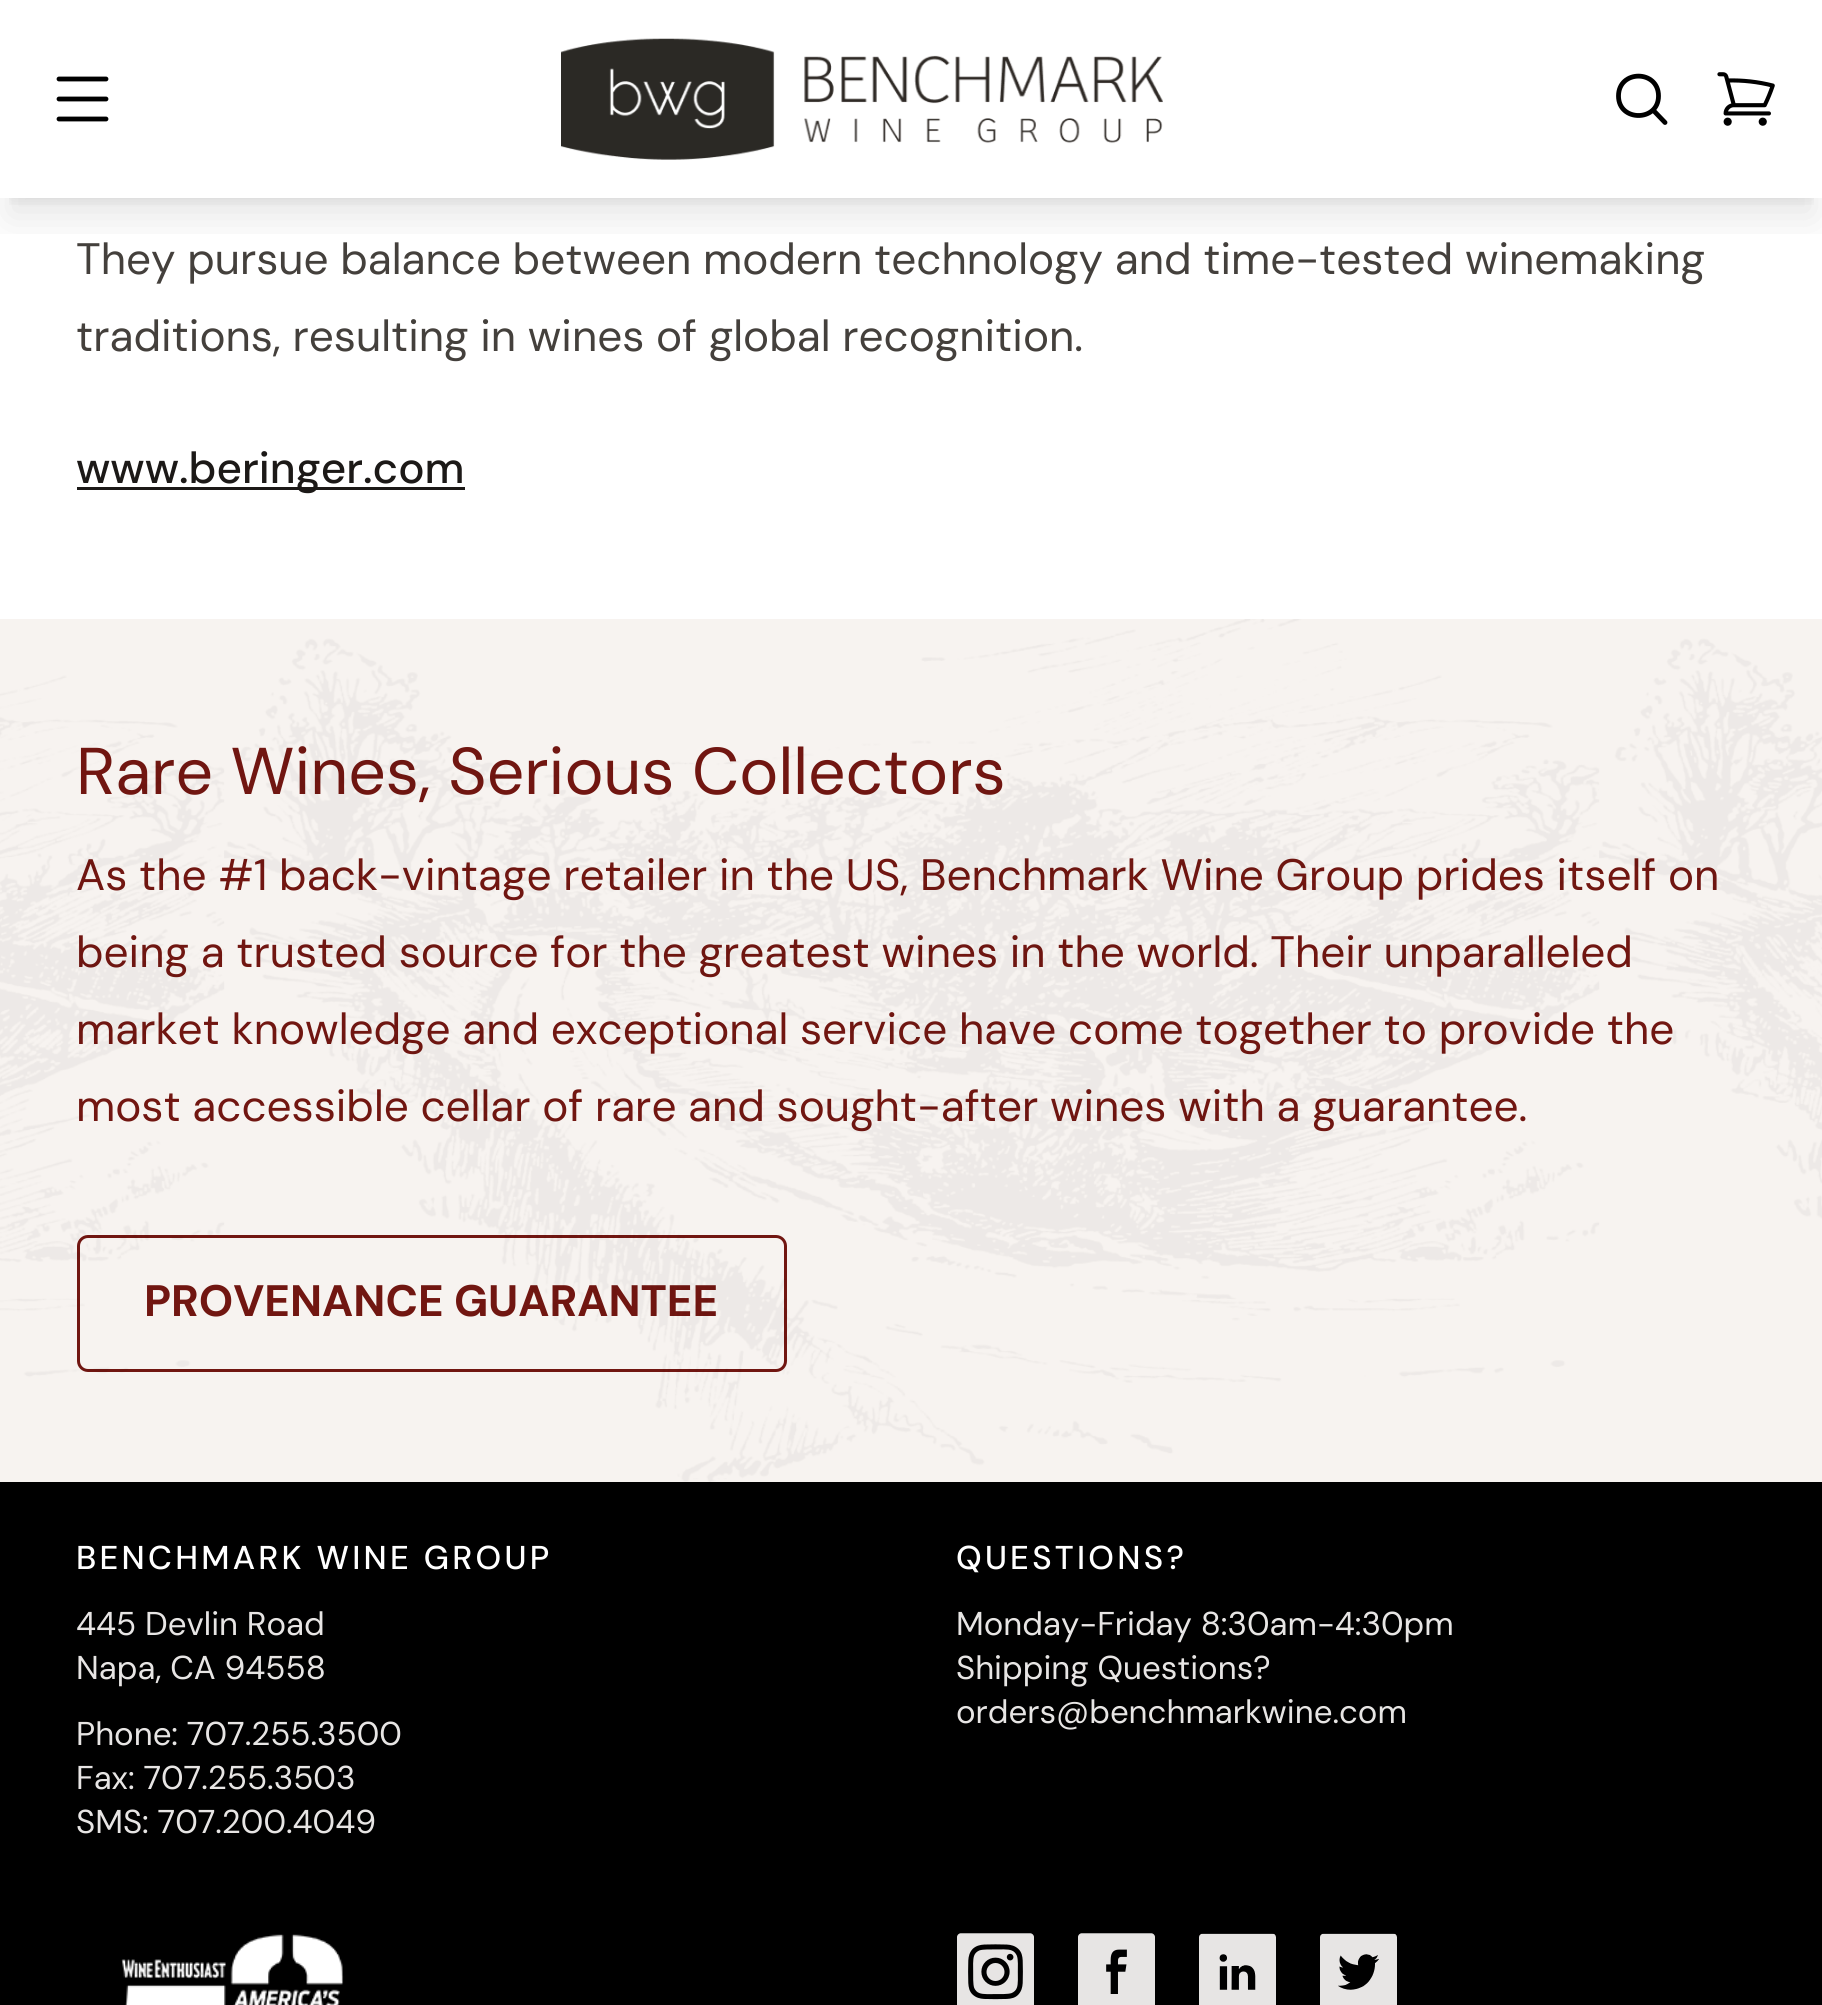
import math
import cairo


def write_spaced(ctx, x, y, s, letter, word):
	ctx.move_to(x, y)
	for ch in s:
		ctx.show_text(ch)
		ctx.rel_move_to(letter + word * (ch == ' '), 0)

def round_path(ctx, x, y, w, h, r):
	ctx.new_sub_path()
	for i, (u, v) in enumerate([(x + w - r, y + h - r), (x + r, y + h - r), (x + r, y + r), (x + w - r, y + r)]):
		ctx.arc(u, v, r, i * math.pi / 2, (i + 1) * math.pi / 2)
	ctx.close_path()

def blur_box(ctx, x, y, w, h, r, blur, alpha):
	ctx.push_group_with_content(cairo.CONTENT_ALPHA)
	ctx.set_operator(cairo.OPERATOR_SOURCE)
	for i in range(15, -16, -2):
		e = blur * i / 6
		if min(w, h) + 2 * e > 0:
			ctx.set_source_rgba(0, 0, 0, alpha * math.erfc((i - 1) / 8.5) / 2)
			round_path(ctx, x - e, y - e, w + 2 * e, h + 2 * e, max(0, min(r + e + blur * .6, min(w, h) / 2 + e)))
			ctx.fill()
	ctx.mask(ctx.pop_group())

def paste(ctx, path, x, y, w, h):
	ctx.save()
	ctx.set_source_surface(cairo.ImageSurface.create_from_png(path), x, y)
	ctx.rectangle(x, y, w, h)
	ctx.fill()
	ctx.restore()

def draw(ctx):
	ctx.set_source_rgb(1, 1, 1)
	ctx.paint()
	ctx.save()
	ctx.rectangle(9, 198, 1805, 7)
	ctx.clip()
	ctx.set_source_rgb(0, 0, 0)
	blur_box(ctx, 11, 22, 1801, 176, 0, 8, 0.1)
	ctx.restore()
	ctx.save()
	ctx.rectangle(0, 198, 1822, 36)
	ctx.clip()
	ctx.set_source_rgb(0, 0, 0)
	blur_box(ctx, 8, 36, 1807, 181, 0, 20.5, 0.1)
	ctx.restore()
	ctx.new_path()
	ctx.move_to(59, 79)
	ctx.line_to(106, 79)
	ctx.move_to(59, 119)
	ctx.line_to(106, 119)
	ctx.move_to(59, 99)
	ctx.line_to(106, 99)
	ctx.set_source_rgb(0, 0, 0)
	ctx.set_line_width(4.8)
	ctx.set_line_cap(cairo.LINE_CAP_ROUND)
	ctx.set_line_join(cairo.LINE_JOIN_ROUND)
	ctx.stroke()
	paste(ctx, 'media/1.png', 561, 38, 602, 122)
	ctx.new_path()
	ctx.move_to(1665, 122.5)
	ctx.line_to(1653, 110)
	ctx.move_to(1618.5, 96)
	ctx.curve_to(1618.5, 69.5, 1658.5, 69.5, 1658.5, 96)
	ctx.curve_to(1658.5, 122, 1618.5, 122, 1618.5, 96)
	ctx.close_path()
	ctx.stroke()
	paste(ctx, 'media/2.png', 1717, 72, 58, 54)
	ctx.select_font_face('DM Sans')
	ctx.set_font_size(44)
	ctx.set_source_rgb(0.267, 0.251, 0.235)
	ctx.move_to(76, 274)
	ctx.show_text('They pursue balance between modern technology and time-tested winemaking')
	ctx.move_to(76, 351)
	ctx.show_text('traditions, resulting in wines of global recognition.')
	ctx.set_source_rgb(0.11, 0.098, 0.09)
	ctx.rectangle(77, 487, 388, 3)
	ctx.fill()
	ctx.select_font_face('DM Sans Medium')
	ctx.move_to(76, 483)
	ctx.show_text('www.beringer.com')
	ctx.set_source_rgb(0.965, 0.953, 0.941)
	ctx.rectangle(0, 619, 1822, 863)
	ctx.fill()
	ctx.select_font_face('DM Sans')
	ctx.set_font_size(66)
	ctx.set_source_rgb(0.443, 0.086, 0.067)
	ctx.move_to(76, 794)
	ctx.show_text('Rare Wines, Serious Collectors')
	ctx.set_font_size(44)
	for x, y, s in [
		(76, 890, 'As the #1 back-vintage retailer in the US, Benchmark Wine Group prides itself on'),
		(76, 967, 'being a trusted source for the greatest wines in the world. Their unparalleled'),
		(76, 1044, 'market knowledge and exceptional service have come together to provide the'),
		(76, 1121, 'most accessible cellar of rare and sought-after wines with a guarantee.'),
	]:
		ctx.move_to(x, y)
		ctx.show_text(s)
	round_path(ctx, 78.5, 1236.5, 707, 134, 9.5)
	ctx.set_line_width(3)
	ctx.set_line_cap(cairo.LINE_CAP_BUTT)
	ctx.set_line_join(cairo.LINE_JOIN_MITER)
	ctx.stroke()
	ctx.select_font_face('DM Sans', cairo.FONT_SLANT_NORMAL, cairo.FONT_WEIGHT_BOLD)
	ctx.move_to(144, 1316)
	ctx.show_text('PROVENANCE GUARANTEE')
	paste(ctx, 'media/3.png', 0, 619, 1822, 863)
	ctx.set_source_rgb(0, 0, 0)
	ctx.rectangle(0, 1482, 1822, 523)
	ctx.fill()
	ctx.select_font_face('DM Sans Medium')
	ctx.set_font_size(33)
	ctx.set_source_rgb(1, 1, 1)
	write_spaced(ctx, 76, 1569, 'BENCHMARK WINE GROUP', 3.25, 0)
	ctx.select_font_face('DM Sans')
	ctx.set_source_rgb(0.906, 0.898, 0.894)
	for x, y, s in [
		(76, 1635, '445 Devlin Road'),
		(76, 1679, 'Napa, CA 94558'),
		(76, 1745, 'Phone: 707.255.3500'),
		(76, 1789, 'Fax: 707.255.3503'),
		(76, 1833, 'SMS: 707.200.4049'),
	]:
		ctx.move_to(x, y)
		ctx.show_text(s)
	ctx.select_font_face('DM Sans Medium')
	ctx.set_source_rgb(1, 1, 1)
	write_spaced(ctx, 956, 1569, 'QUESTIONS?', 3.25, 0)
	ctx.select_font_face('DM Sans')
	ctx.set_source_rgb(0.906, 0.898, 0.894)
	for x, y, s in [
		(956, 1635, 'Monday-Friday 8:30am-4:30pm'),
		(956, 1679, 'Shipping Questions?'),
		(956, 1723, 'orders@benchmarkwine.com'),
	]:
		ctx.move_to(x, y)
		ctx.show_text(s)
	paste(ctx, 'media/4.png', 121, 1934, 223, 71)
	paste(ctx, 'media/5.png', 957, 1933, 77, 72)
	paste(ctx, 'media/6.png', 1078, 1933, 77, 72)
	paste(ctx, 'media/7.png', 1199, 1933, 77, 72)
	paste(ctx, 'media/8.png', 1320, 1933, 77, 72)


surface = cairo.ImageSurface(cairo.FORMAT_RGB24, 1822, 2005)
ctx = cairo.Context(surface)
options = cairo.FontOptions()
options.set_hint_metrics(cairo.HINT_METRICS_OFF)
options.set_hint_style(cairo.HINT_STYLE_NONE)
ctx.set_font_options(options)
ctx.set_miter_limit(4)
draw(ctx)
surface.write_to_png('image.png')
